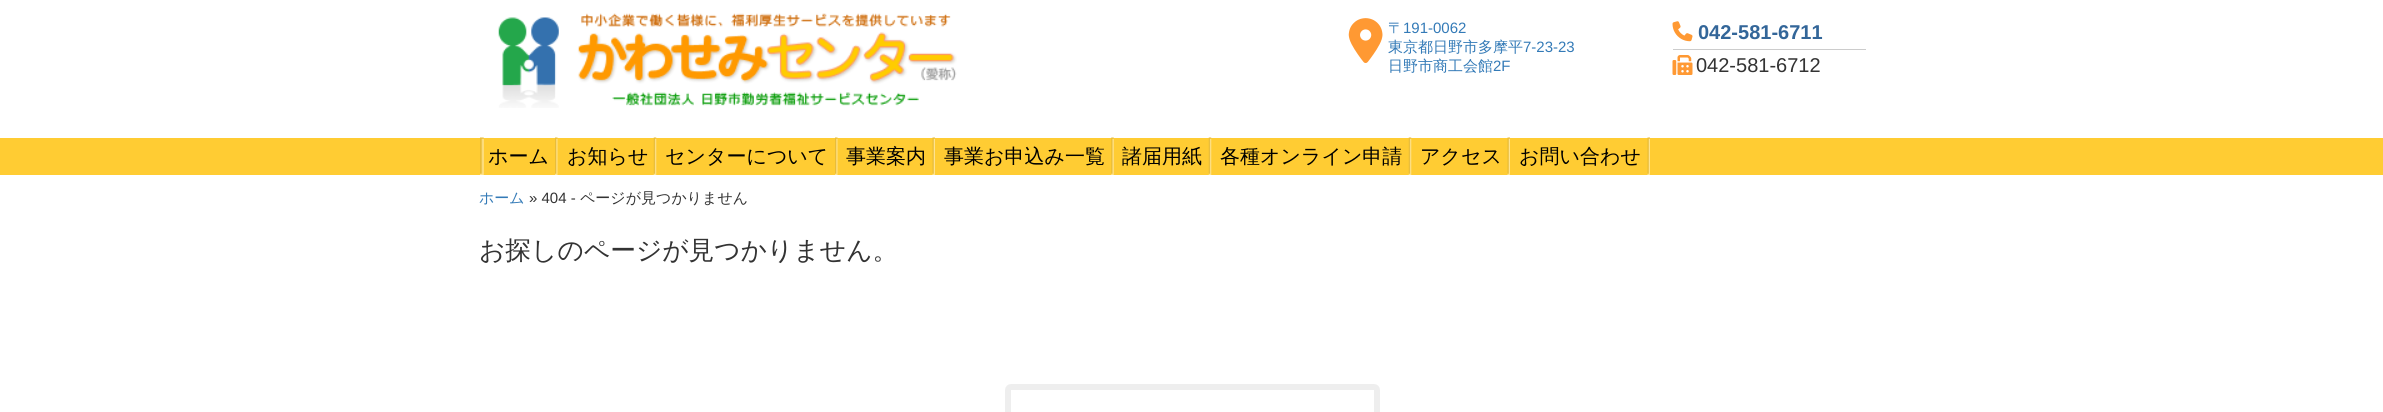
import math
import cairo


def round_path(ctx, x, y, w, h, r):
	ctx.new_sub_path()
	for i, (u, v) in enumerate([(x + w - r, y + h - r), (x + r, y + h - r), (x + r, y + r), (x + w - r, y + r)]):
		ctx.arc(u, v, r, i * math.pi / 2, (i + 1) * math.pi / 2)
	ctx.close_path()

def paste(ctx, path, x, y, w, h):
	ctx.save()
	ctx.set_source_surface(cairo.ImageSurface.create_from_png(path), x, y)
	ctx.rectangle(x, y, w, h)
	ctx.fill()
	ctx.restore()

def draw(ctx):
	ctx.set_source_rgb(1, 1, 1)
	ctx.paint()
	paste(ctx, 'media/1.png', 498, 13, 459, 95)
	paste(ctx, 'media/2.png', 1348, 18, 35, 45)
	ctx.select_font_face('WenQuanYi Zen Hei Medium')
	ctx.set_font_size(15)
	ctx.set_source_rgb(0.2, 0.478, 0.718)
	ctx.move_to(1388, 33)
	ctx.show_text('〒')
	ctx.select_font_face('Liberation Sans')
	ctx.move_to(1403, 33)
	ctx.show_text('191-0062')
	ctx.select_font_face('WenQuanYi Zen Hei Medium')
	ctx.move_to(1388, 52)
	ctx.show_text('東京都日野市多摩平')
	ctx.select_font_face('Liberation Sans')
	ctx.move_to(1523, 52)
	ctx.show_text('7-23-23')
	ctx.select_font_face('WenQuanYi Zen Hei Medium')
	ctx.move_to(1388, 71)
	ctx.show_text('日野市商工会館')
	ctx.select_font_face('Liberation Sans')
	ctx.move_to(1493, 71)
	ctx.show_text('2F')
	ctx.set_source_rgb(0.8, 0.8, 0.8)
	ctx.rectangle(1673, 49, 193, 1)
	ctx.fill()
	paste(ctx, 'media/3.png', 1672, 21, 21, 21)
	ctx.select_font_face('Liberation Sans', cairo.FONT_SLANT_NORMAL, cairo.FONT_WEIGHT_BOLD)
	ctx.set_font_size(20)
	ctx.set_source_rgb(0.2, 0.4, 0.6)
	ctx.move_to(1698, 39)
	ctx.show_text('042-581-6711')
	paste(ctx, 'media/4.png', 1672, 55, 21, 20)
	ctx.select_font_face('Liberation Sans')
	ctx.set_source_rgb(0.2, 0.2, 0.2)
	ctx.move_to(1696, 72)
	ctx.show_text('042-581-6712')
	ctx.set_source_rgb(1, 0.8, 0.2)
	ctx.rectangle(0, 138, 2383, 37)
	ctx.fill()
	paste(ctx, 'media/5.png', 480, 137, 4, 38)
	paste(ctx, 'media/6.png', 555, 137, 3, 38)
	ctx.select_font_face('WenQuanYi Zen Hei Medium')
	ctx.set_source_rgb(0, 0, 0)
	ctx.move_to(488, 163)
	ctx.show_text('ホーム')
	paste(ctx, 'media/7.png', 653, 137, 4, 38)
	ctx.move_to(567, 163)
	ctx.show_text('お知らせ')
	paste(ctx, 'media/6.png', 835, 137, 3, 38)
	ctx.move_to(665, 163)
	ctx.show_text('センターについて')
	paste(ctx, 'media/8.png', 932, 137, 3, 38)
	ctx.move_to(846, 163)
	ctx.show_text('事業案内')
	paste(ctx, 'media/9.png', 1111, 137, 3, 38)
	ctx.move_to(944, 163)
	ctx.show_text('事業お申込み一覧')
	paste(ctx, 'media/7.png', 1208, 137, 4, 38)
	ctx.move_to(1122, 163)
	ctx.show_text('諸届用紙')
	paste(ctx, 'media/7.png', 1408, 137, 4, 38)
	ctx.move_to(1220, 163)
	ctx.show_text('各種オンライン申請')
	paste(ctx, 'media/8.png', 1507, 137, 3, 38)
	ctx.move_to(1420, 163)
	ctx.show_text('アクセス')
	paste(ctx, 'media/8.png', 1647, 137, 3, 38)
	ctx.move_to(1519, 163)
	ctx.show_text('お問い合わせ')
	ctx.set_font_size(15)
	ctx.set_source_rgb(0.2, 0.478, 0.718)
	ctx.move_to(479, 203)
	ctx.show_text('ホーム')
	ctx.select_font_face('Liberation Sans')
	ctx.set_source_rgb(0.2, 0.2, 0.2)
	ctx.move_to(529, 203)
	ctx.show_text('» 404 -')
	ctx.select_font_face('WenQuanYi Zen Hei Medium')
	ctx.move_to(580, 203)
	ctx.show_text('ページが見つかりません')
	ctx.set_font_size(25.75)
	ctx.move_to(479, 259)
	ctx.show_text('お探しのページが見つかりません。')
	round_path(ctx, 1008, 387, 369, 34, 3)
	ctx.set_source_rgb(0.933, 0.933, 0.933)
	ctx.set_line_width(6)
	ctx.stroke()


surface = cairo.ImageSurface(cairo.FORMAT_RGB24, 2383, 412)
ctx = cairo.Context(surface)
options = cairo.FontOptions()
options.set_hint_metrics(cairo.HINT_METRICS_OFF)
options.set_hint_style(cairo.HINT_STYLE_NONE)
ctx.set_font_options(options)
ctx.set_miter_limit(4)
draw(ctx)
surface.write_to_png('image.png')
